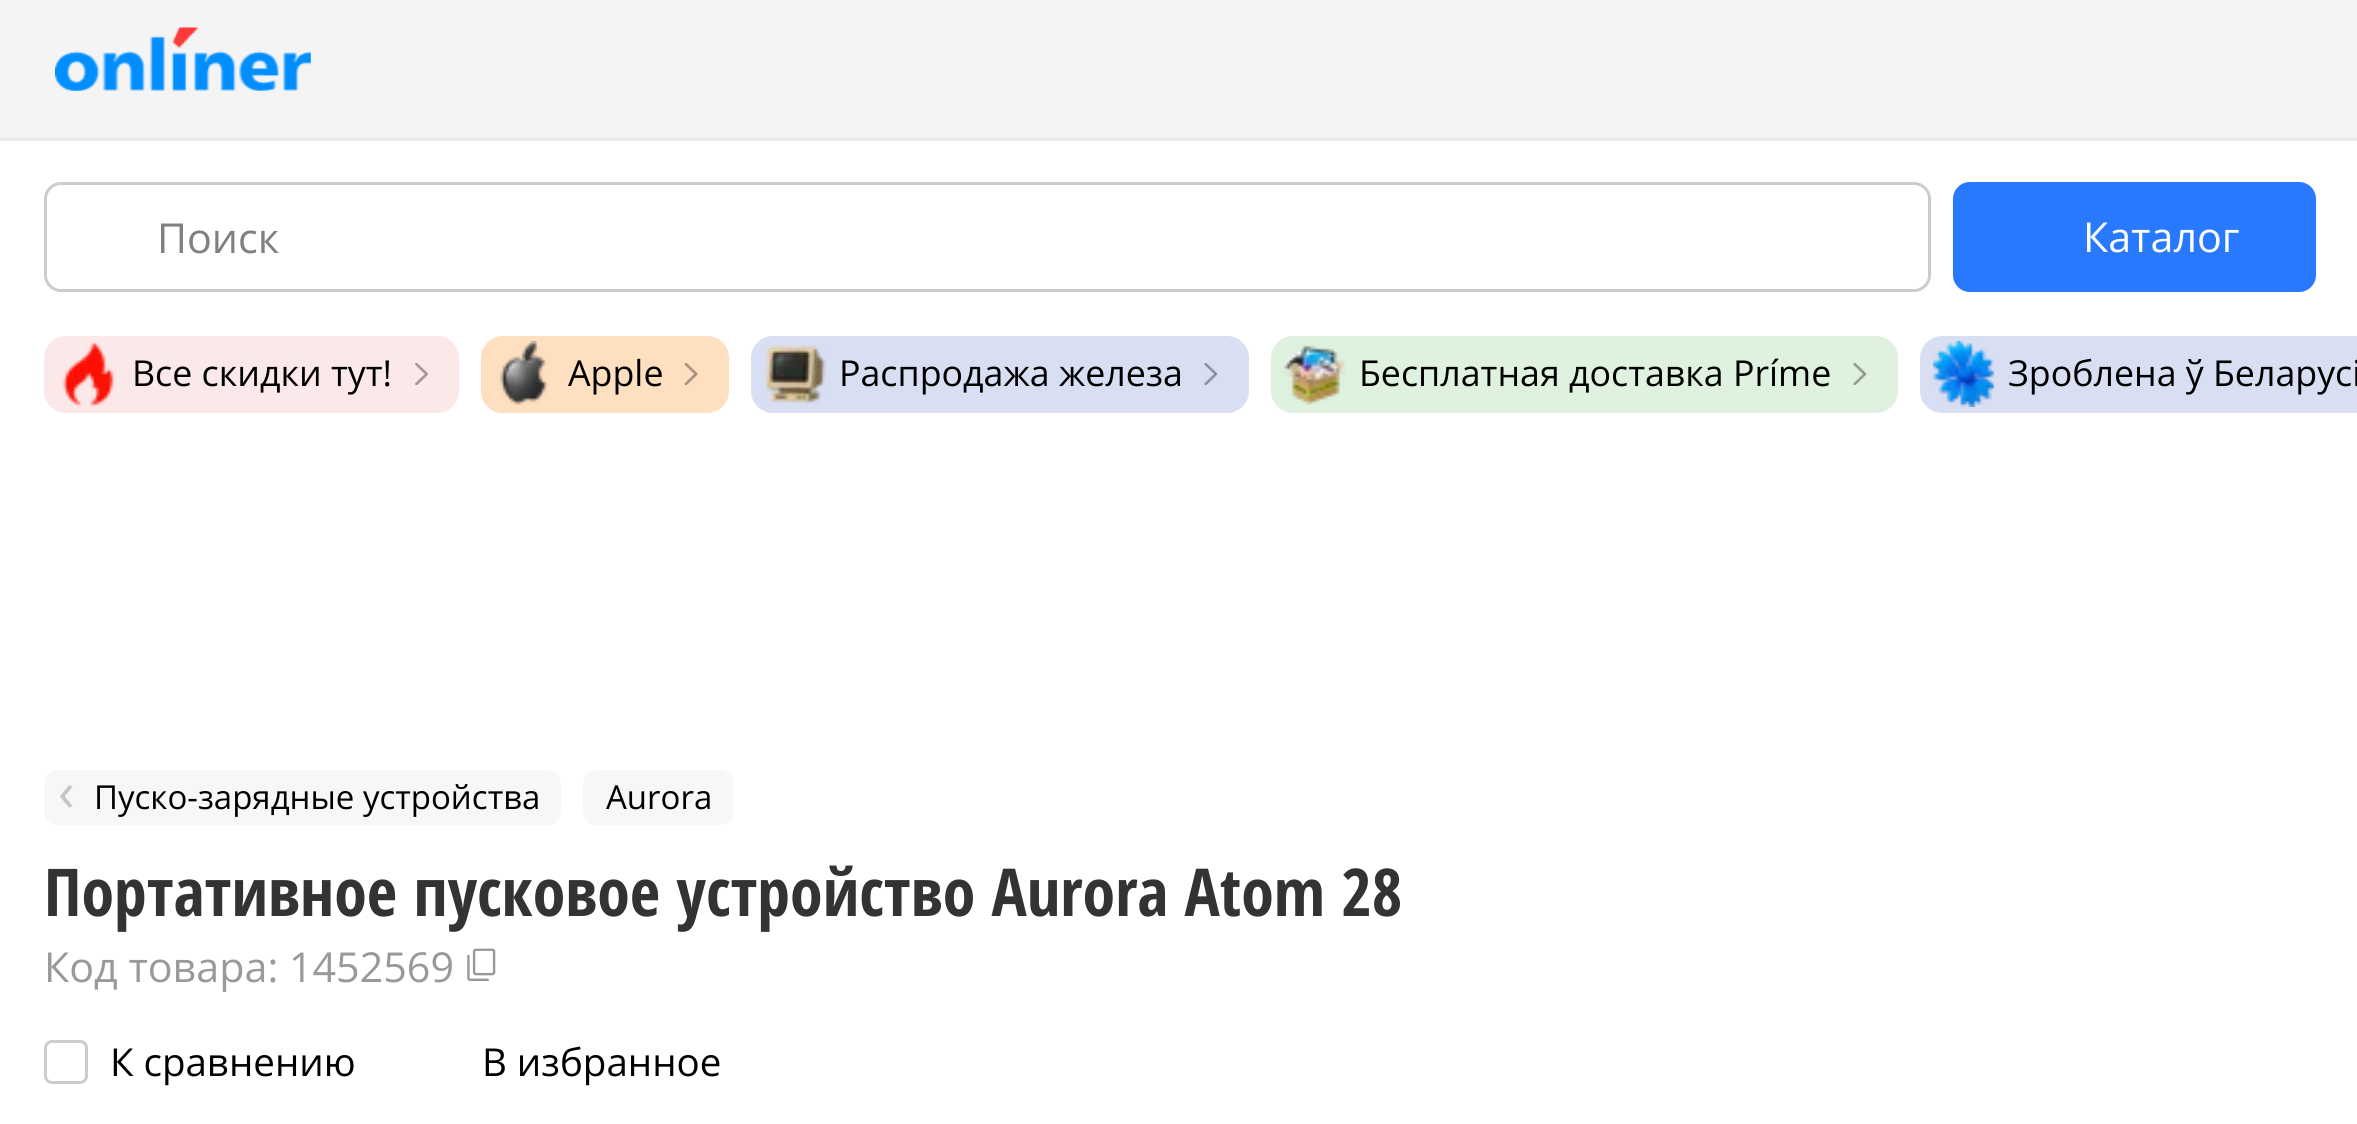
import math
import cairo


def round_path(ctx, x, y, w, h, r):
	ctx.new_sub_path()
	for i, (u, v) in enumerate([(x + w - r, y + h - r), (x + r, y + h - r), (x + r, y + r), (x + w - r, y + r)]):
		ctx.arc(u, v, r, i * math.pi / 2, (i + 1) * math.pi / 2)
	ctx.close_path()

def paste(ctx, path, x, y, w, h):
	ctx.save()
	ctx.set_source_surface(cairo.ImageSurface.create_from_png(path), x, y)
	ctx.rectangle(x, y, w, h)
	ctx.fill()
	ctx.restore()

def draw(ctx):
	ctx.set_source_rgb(1, 1, 1)
	ctx.paint()
	ctx.set_source_rgb(0.957, 0.957, 0.957)
	ctx.rectangle(0, 0, 2357, 138)
	ctx.fill()
	ctx.set_source_rgb(0.91, 0.91, 0.91)
	ctx.rectangle(0, 138, 2357, 2)
	ctx.fill()
	paste(ctx, 'media/1.png', 55, 27, 256, 64)
	ctx.set_source_rgb(0.949, 0.949, 0.949)
	ctx.rectangle(0, 140, 2357, 1)
	ctx.fill()
	round_path(ctx, 45.5, 183.5, 1884, 107, 15.5)
	ctx.set_source_rgb(0.8, 0.8, 0.8)
	ctx.set_line_width(3)
	ctx.stroke()
	ctx.select_font_face('Open Sans')
	ctx.set_font_size(41.25)
	ctx.set_source_rgb(0.502, 0.502, 0.502)
	ctx.move_to(157, 253)
	ctx.show_text('Поиск')
	ctx.set_source_rgb(0.161, 0.475, 1)
	round_path(ctx, 1953, 182, 363, 110, 17)
	ctx.fill()
	ctx.set_source_rgb(1, 1, 1)
	ctx.move_to(2083, 252)
	ctx.show_text('Каталог')
	ctx.set_source_rgb(0.984, 0.914, 0.914)
	round_path(ctx, 44, 336, 415, 77, 22)
	ctx.fill()
	paste(ctx, 'media/2.png', 415, 363, 13, 22)
	paste(ctx, 'media/3.png', 62, 341, 52, 66)
	ctx.set_font_size(35.75)
	ctx.set_source_rgb(0, 0, 0)
	ctx.move_to(132, 386)
	ctx.show_text('Все скидки тут!')
	ctx.set_source_rgb(0.996, 0.878, 0.757)
	round_path(ctx, 481, 336, 248, 77, 22)
	ctx.fill()
	paste(ctx, 'media/4.png', 684, 363, 14, 22)
	paste(ctx, 'media/5.png', 499, 341, 49, 64)
	ctx.set_source_rgb(0, 0, 0)
	ctx.move_to(568, 386)
	ctx.show_text('Apple')
	ctx.set_source_rgb(0.851, 0.875, 0.949)
	round_path(ctx, 751, 336, 498, 77, 22)
	ctx.fill()
	paste(ctx, 'media/6.png', 1204, 363, 14, 22)
	paste(ctx, 'media/7.png', 764, 345, 62, 60)
	ctx.set_source_rgb(0, 0, 0)
	ctx.move_to(839, 386)
	ctx.show_text('Распродажа железа')
	ctx.set_source_rgb(0.875, 0.949, 0.875)
	round_path(ctx, 1271, 336, 627, 77, 22)
	ctx.fill()
	paste(ctx, 'media/8.png', 1853, 363, 14, 22)
	paste(ctx, 'media/9.png', 1282, 345, 65, 60)
	ctx.set_source_rgb(0, 0, 0)
	ctx.move_to(1359, 386)
	ctx.show_text('Бесплатная доставка Príme')
	ctx.set_source_rgb(0.851, 0.875, 0.949)
	ctx.new_path()
	ctx.move_to(1942, 336)
	ctx.line_to(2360, 336)
	ctx.line_to(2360, 413)
	ctx.line_to(1942, 413)
	ctx.curve_to(1930, 413, 1920, 403, 1920, 391)
	ctx.line_to(1920, 358)
	ctx.curve_to(1920, 346, 1930, 336, 1942, 336)
	ctx.close_path()
	ctx.fill()
	paste(ctx, 'media/10.png', 1933, 341, 61, 66)
	ctx.set_source_rgb(0, 0, 0)
	ctx.move_to(2008, 386)
	ctx.show_text('Зроблена ў Беларусі')
	ctx.set_source_rgb(0.965, 0.965, 0.965)
	round_path(ctx, 44, 770, 517, 55, 14)
	ctx.fill()
	ctx.set_font_size(55)
	ctx.set_source_rgb(0.773, 0.773, 0.773)
	ctx.move_to(58, 811)
	ctx.show_text('‹')
	ctx.set_font_size(33)
	ctx.set_source_rgb(0, 0, 0)
	ctx.move_to(94, 809)
	ctx.show_text('Пуско-зарядные устройства')
	ctx.set_source_rgb(0.965, 0.965, 0.965)
	round_path(ctx, 583, 770, 151, 55, 14)
	ctx.fill()
	ctx.set_source_rgb(0, 0, 0)
	ctx.move_to(606, 809)
	ctx.show_text('Aurora')
	ctx.select_font_face('Open Sans Condensed', cairo.FONT_SLANT_NORMAL, cairo.FONT_WEIGHT_BOLD)
	ctx.set_font_size(66)
	ctx.set_source_rgb(0.2, 0.2, 0.2)
	ctx.move_to(44, 916)
	ctx.show_text('Портативное пусковое устройство Aurora Atom 28')
	ctx.select_font_face('Open Sans')
	ctx.set_font_size(41.25)
	ctx.set_source_rgb(0.6, 0.6, 0.6)
	ctx.move_to(44, 982)
	ctx.show_text('Код товара: 1452569')
	paste(ctx, 'media/11.png', 467, 948, 29, 33)
	round_path(ctx, 45.5, 1041.5, 41, 41, 6.5)
	ctx.set_source_rgb(0.8, 0.8, 0.8)
	ctx.stroke()
	ctx.set_font_size(38.5)
	ctx.set_source_rgb(0, 0, 0)
	ctx.move_to(110, 1076)
	ctx.show_text('К сравнению')
	ctx.move_to(482, 1076)
	ctx.show_text('В избранное')


surface = cairo.ImageSurface(cairo.FORMAT_RGB24, 2357, 1124)
ctx = cairo.Context(surface)
options = cairo.FontOptions()
options.set_hint_metrics(cairo.HINT_METRICS_OFF)
options.set_hint_style(cairo.HINT_STYLE_NONE)
ctx.set_font_options(options)
ctx.set_miter_limit(4)
draw(ctx)
surface.write_to_png('image.png')
